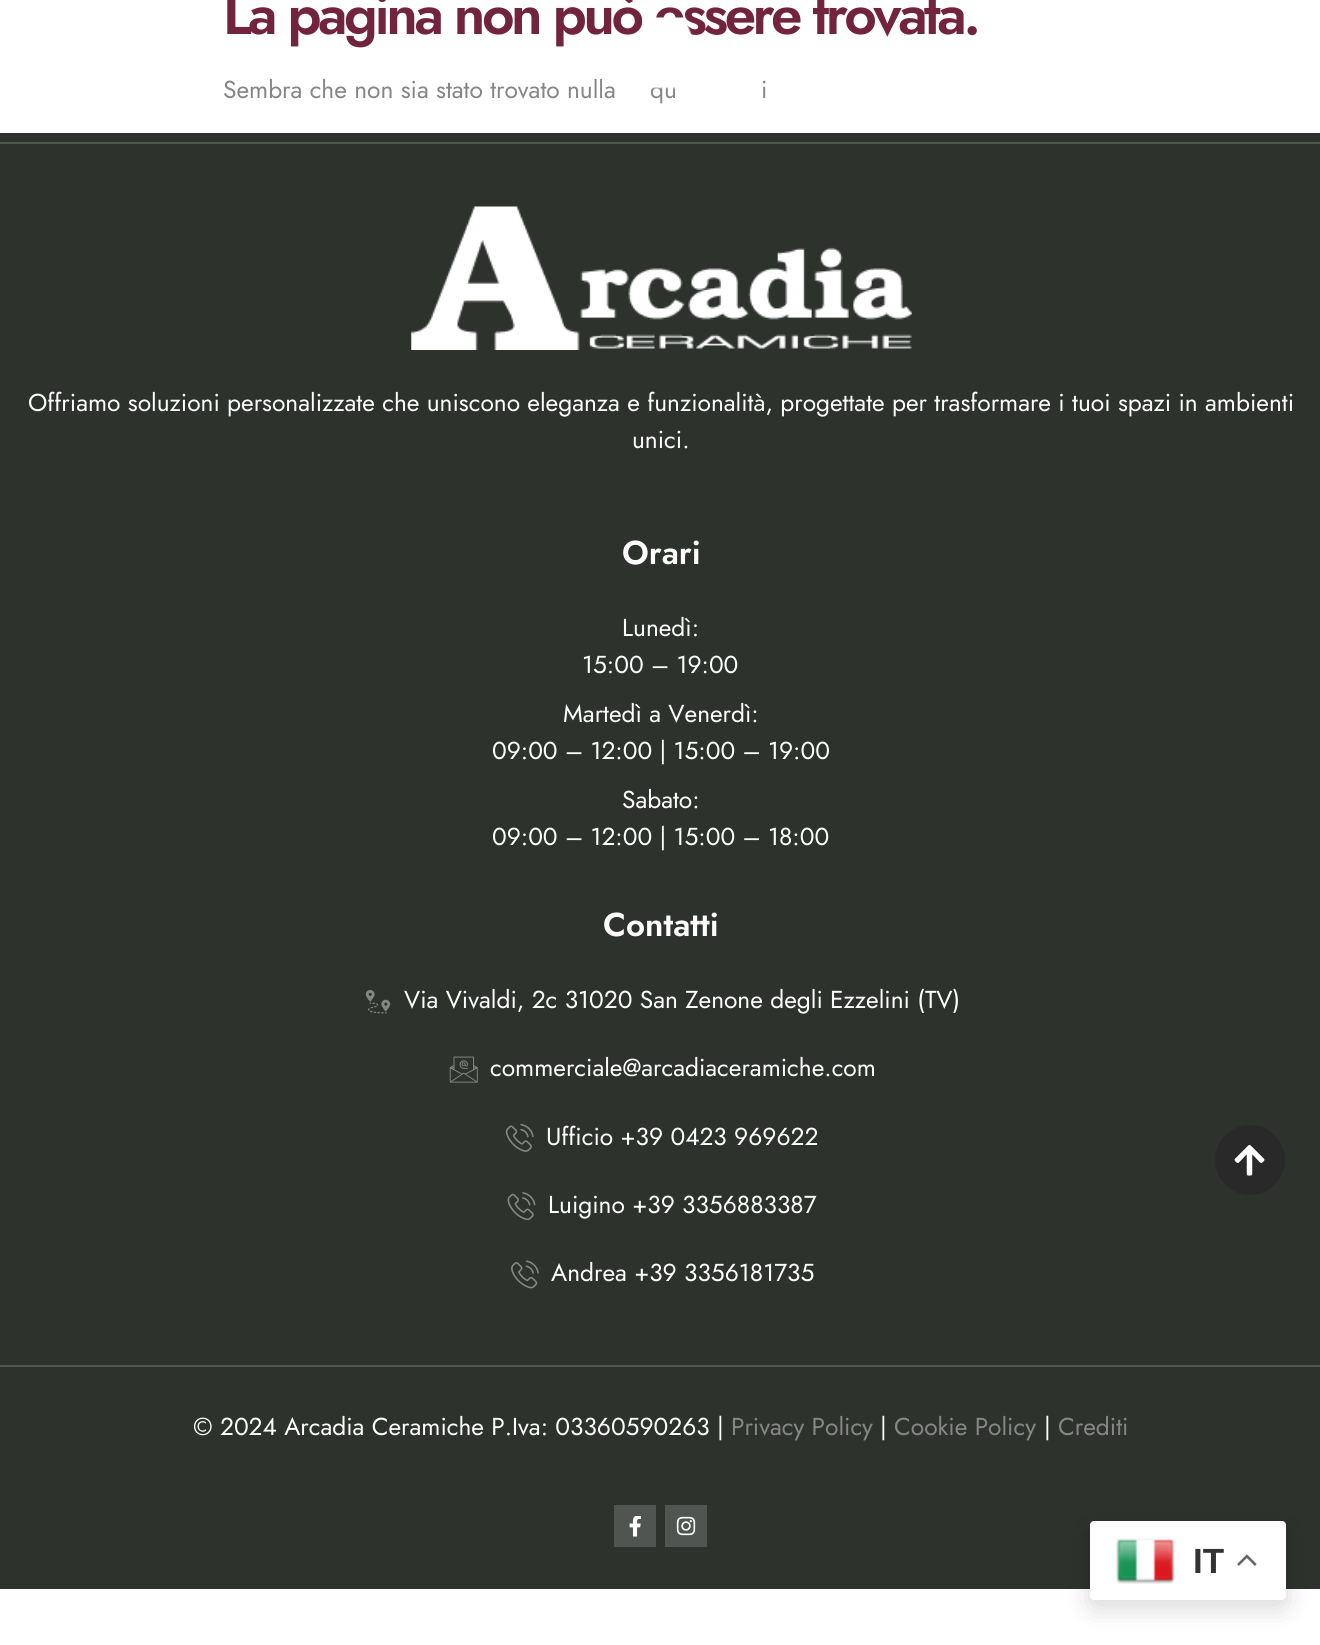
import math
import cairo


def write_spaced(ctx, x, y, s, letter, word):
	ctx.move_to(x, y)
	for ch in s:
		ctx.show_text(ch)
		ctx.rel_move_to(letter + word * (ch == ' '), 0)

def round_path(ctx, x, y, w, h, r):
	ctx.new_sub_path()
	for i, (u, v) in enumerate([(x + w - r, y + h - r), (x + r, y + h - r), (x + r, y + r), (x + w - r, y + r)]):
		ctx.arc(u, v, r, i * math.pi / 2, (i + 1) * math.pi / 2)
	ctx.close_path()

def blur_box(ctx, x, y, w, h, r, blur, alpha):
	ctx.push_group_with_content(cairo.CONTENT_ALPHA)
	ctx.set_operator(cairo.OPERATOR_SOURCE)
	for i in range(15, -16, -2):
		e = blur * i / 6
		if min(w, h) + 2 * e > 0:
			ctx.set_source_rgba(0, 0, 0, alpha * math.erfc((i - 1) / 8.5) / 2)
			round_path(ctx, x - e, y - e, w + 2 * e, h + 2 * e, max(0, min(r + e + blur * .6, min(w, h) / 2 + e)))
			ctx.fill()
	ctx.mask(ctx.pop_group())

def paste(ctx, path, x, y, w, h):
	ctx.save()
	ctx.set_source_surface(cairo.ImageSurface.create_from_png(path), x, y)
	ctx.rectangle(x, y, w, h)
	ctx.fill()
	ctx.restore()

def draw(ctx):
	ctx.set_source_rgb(1, 1, 1)
	ctx.paint()
	ctx.select_font_face('Jost SemiBold')
	ctx.set_font_size(56.6)
	ctx.set_source_rgb(0.447, 0.141, 0.247)
	write_spaced(ctx, 223, 34, 'La pagina non può essere trovata.', -3.5, 0)
	ctx.select_font_face('Jost')
	ctx.set_font_size(24.5)
	ctx.set_source_rgb(0.525, 0.525, 0.525)
	for x, y, s in [
		(223, 98, 'Sembra che non sia stato trovato nulla'),
		(650, 98, 'qu'),
		(761, 98, 'i'),
	]:
		ctx.move_to(x, y)
		ctx.show_text(s)
	ctx.set_source_rgb(0.176, 0.196, 0.176)
	ctx.rectangle(0, 133, 1320, 1456)
	ctx.fill()
	ctx.set_source_rgb(0.318, 0.333, 0.318)
	ctx.rectangle(0, 142, 1320, 2)
	ctx.fill()
	paste(ctx, 'media/1.png', 625, 17, 205, 82)
	ctx.rectangle(0, 1365, 1320, 2)
	ctx.fill()
	paste(ctx, 'media/2.png', 411, 206, 501, 144)
	ctx.set_source_rgb(1, 1, 1)
	ctx.move_to(28, 411)
	ctx.show_text('Offriamo soluzioni personalizzate che uniscono eleganza e funzionalità, progettate per trasformare i tuoi spazi in ambienti')
	ctx.move_to(632, 448)
	ctx.show_text('unici.')
	ctx.select_font_face('Jost SemiBold')
	ctx.set_font_size(33)
	ctx.move_to(622, 564)
	ctx.show_text('Orari')
	ctx.select_font_face('Jost')
	ctx.set_font_size(24.5)
	for x, y, s in [
		(622, 636, 'Lunedì:'),
		(582, 673, '15:00 – 19:00'),
		(563, 722, 'Martedì a Venerdì:'),
		(492, 759, '09:00 – 12:00 | 15:00 – 19:00'),
		(622, 808, 'Sabato:'),
		(492, 845, '09:00 – 12:00 | 15:00 – 18:00'),
	]:
		ctx.move_to(x, y)
		ctx.show_text(s)
	ctx.select_font_face('Jost SemiBold')
	ctx.set_font_size(33)
	ctx.move_to(603, 936)
	ctx.show_text('Contatti')
	paste(ctx, 'media/3.png', 365, 990, 26, 24)
	ctx.select_font_face('Jost')
	ctx.set_font_size(24.5)
	ctx.move_to(404, 1008)
	ctx.show_text('Via Vivaldi, 2c 31020 San Zenone degli Ezzelini (TV)')
	paste(ctx, 'media/4.png', 449, 1056, 29, 27)
	ctx.move_to(490, 1076)
	ctx.show_text('commerciale@arcadiaceramiche.com')
	paste(ctx, 'media/5.png', 505, 1123, 29, 29)
	ctx.move_to(546, 1145)
	ctx.show_text('Ufficio +39 0423 969622')
	paste(ctx, 'media/6.png', 507, 1192, 29, 29)
	ctx.move_to(548, 1213)
	ctx.show_text('Luigino +39 3356883387')
	paste(ctx, 'media/7.png', 511, 1260, 28, 29)
	ctx.move_to(551, 1281)
	ctx.show_text('Andrea +39 3356181735')
	ctx.move_to(193, 1435)
	ctx.show_text('© 2024 Arcadia Ceramiche P.Iva: 03360590263 |')
	ctx.set_source_rgb(0.525, 0.525, 0.525)
	ctx.move_to(731, 1435)
	ctx.show_text('Privacy Policy')
	ctx.set_source_rgb(1, 1, 1)
	ctx.move_to(880, 1435)
	ctx.show_text('|')
	ctx.set_source_rgb(0.525, 0.525, 0.525)
	ctx.move_to(894, 1435)
	ctx.show_text('Cookie Policy')
	ctx.set_source_rgb(1, 1, 1)
	ctx.move_to(1044, 1435)
	ctx.show_text('|')
	ctx.set_source_rgb(0.525, 0.525, 0.525)
	ctx.move_to(1058, 1435)
	ctx.show_text('Crediti')
	ctx.set_source_rgb(0.318, 0.333, 0.318)
	ctx.rectangle(614, 1505, 42, 42)
	ctx.fill()
	paste(ctx, 'media/8.png', 629, 1516, 12, 21)
	ctx.rectangle(665, 1505, 42, 42)
	ctx.fill()
	paste(ctx, 'media/9.png', 676, 1516, 20, 20)
	ctx.set_source_rgb(0.161, 0.161, 0.161)
	ctx.arc(1250, 1160, 35, 0, 2 * math.pi)
	ctx.fill()
	paste(ctx, 'media/10.png', 1234, 1144, 31, 32)
	ctx.set_source_rgb(0, 0, 0)
	blur_box(ctx, 1090, 1530, 196, 78, 4, 13, 0.15)
	ctx.set_source_rgb(1, 1, 1)
	round_path(ctx, 1090, 1521, 196, 79, 4)
	ctx.fill()
	paste(ctx, 'media/11.png', 1116, 1538, 59, 46)
	ctx.select_font_face('Liberation Sans', cairo.FONT_SLANT_NORMAL, cairo.FONT_WEIGHT_BOLD)
	ctx.set_font_size(35)
	ctx.set_source_rgb(0.2, 0.2, 0.2)
	ctx.move_to(1193, 1573)
	ctx.show_text('IT')
	paste(ctx, 'media/12.png', 1237, 1554, 20, 12)


surface = cairo.ImageSurface(cairo.FORMAT_RGB24, 1320, 1645)
ctx = cairo.Context(surface)
options = cairo.FontOptions()
options.set_hint_metrics(cairo.HINT_METRICS_OFF)
options.set_hint_style(cairo.HINT_STYLE_NONE)
ctx.set_font_options(options)
ctx.set_miter_limit(4)
draw(ctx)
surface.write_to_png('image.png')
